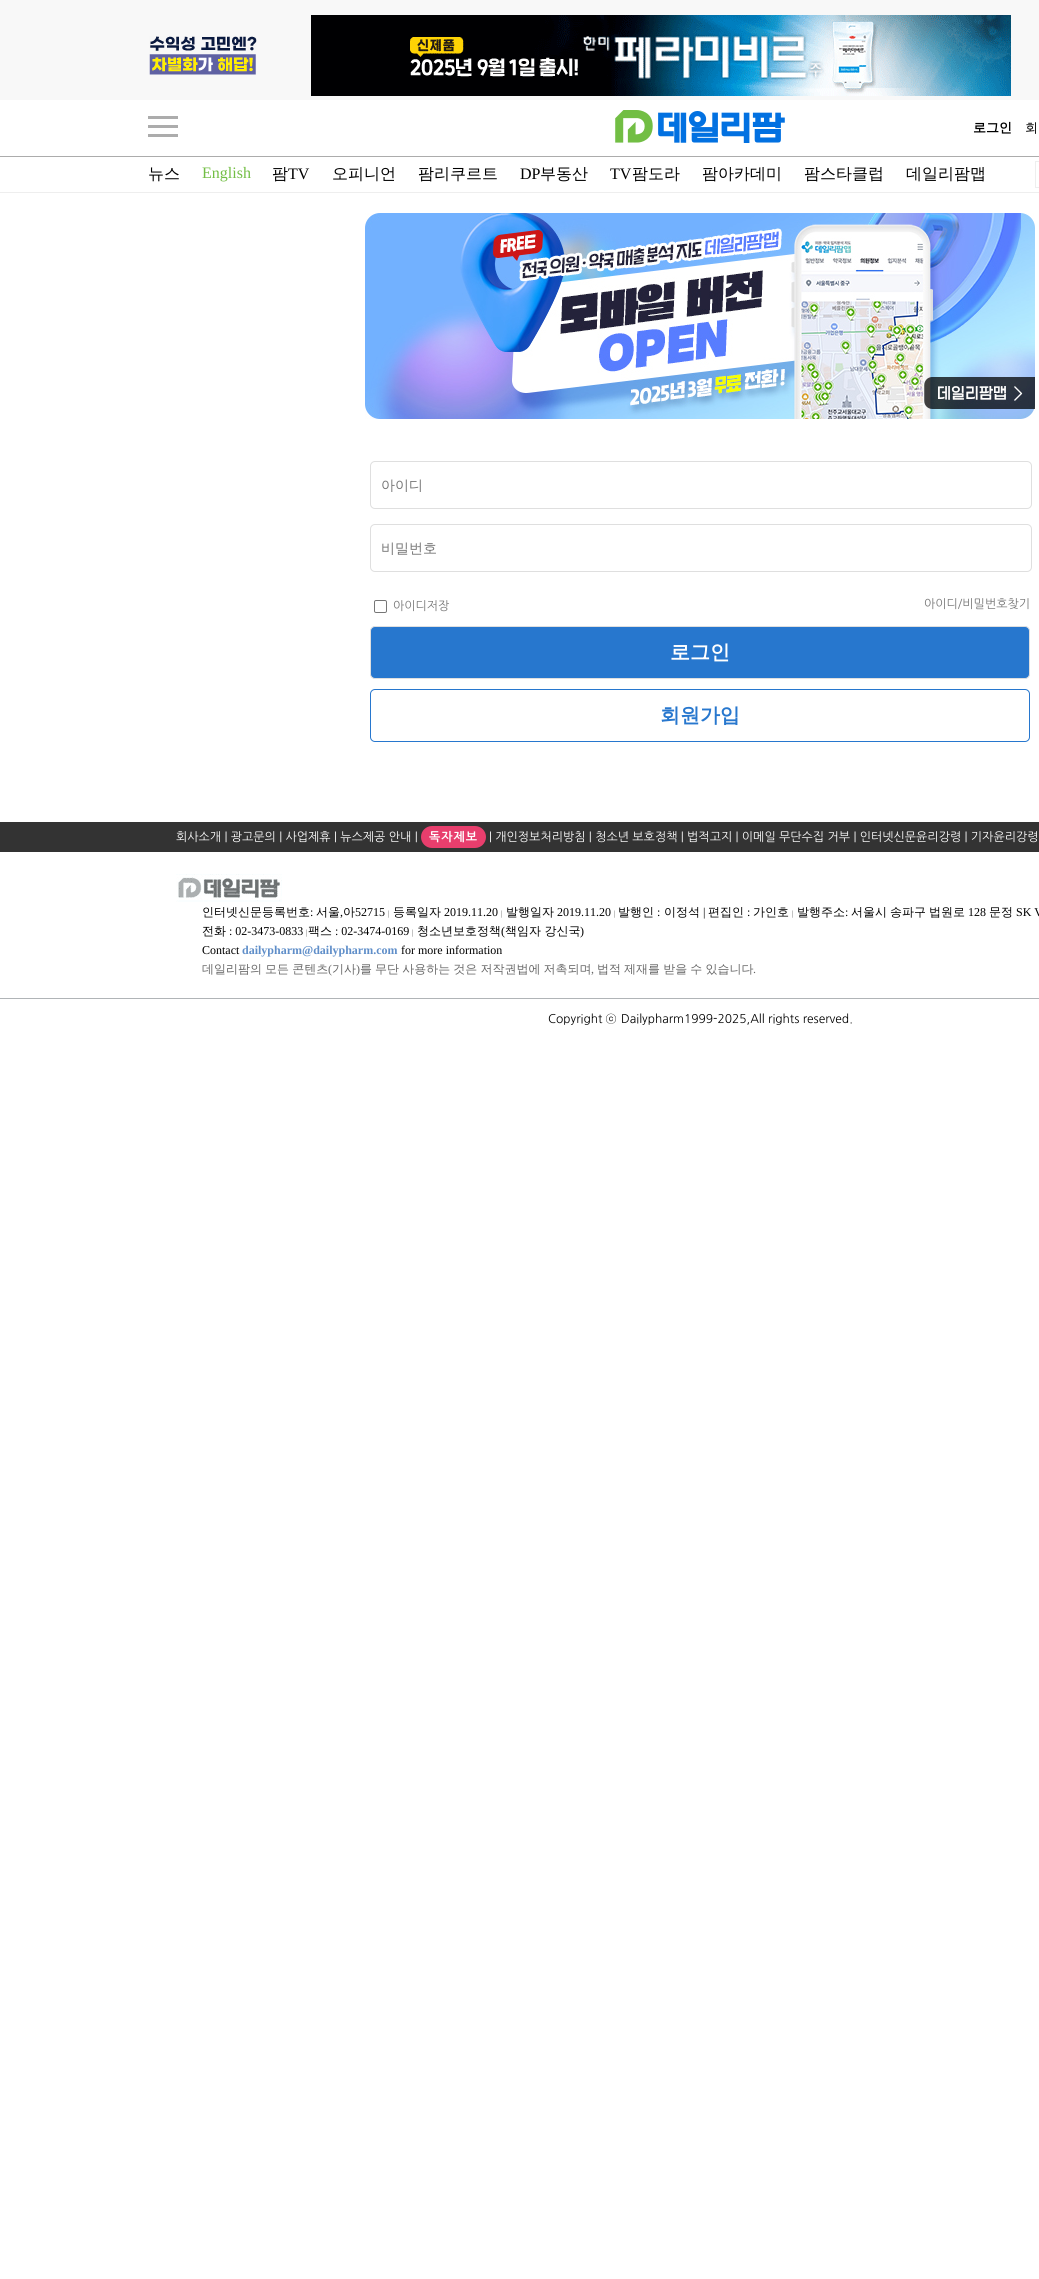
import math
import cairo


def write_spaced(ctx, x, y, s, letter, word):
	ctx.move_to(x, y)
	for ch in s:
		ctx.show_text(ch)
		ctx.rel_move_to(letter + word * (ch == ' '), 0)

def round_path(ctx, x, y, w, h, r):
	ctx.new_sub_path()
	for i, (u, v) in enumerate([(x + w - r, y + h - r), (x + r, y + h - r), (x + r, y + r), (x + w - r, y + r)]):
		ctx.arc(u, v, r, i * math.pi / 2, (i + 1) * math.pi / 2)
	ctx.close_path()

def paste(ctx, path, x, y, w, h):
	ctx.save()
	ctx.set_source_surface(cairo.ImageSurface.create_from_png(path), x, y)
	ctx.rectangle(x, y, w, h)
	ctx.fill()
	ctx.restore()

def draw(ctx):
	ctx.set_source_rgb(1, 1, 1)
	ctx.paint()
	ctx.set_source_rgb(0.969, 0.969, 0.969)
	ctx.rectangle(0, 0, 1039, 100)
	ctx.fill()
	paste(ctx, 'media/1.png', 149, 36, 108, 39)
	paste(ctx, 'media/2.png', 311, 15, 700, 81)
	paste(ctx, 'media/3.png', 148, 116, 30, 21)
	paste(ctx, 'media/4.png', 615, 110, 170, 33)
	ctx.select_font_face('WenQuanYi Zen Hei', cairo.FONT_SLANT_NORMAL, cairo.FONT_WEIGHT_BOLD)
	ctx.set_font_size(13)
	ctx.set_source_rgb(0, 0, 0)
	ctx.move_to(973, 132)
	ctx.show_text('로그인')
	ctx.select_font_face('WenQuanYi Zen Hei Medium')
	ctx.move_to(1025, 132)
	ctx.show_text('회')
	ctx.set_source_rgb(0.675, 0.675, 0.675)
	ctx.rectangle(0, 156, 1039, 1)
	ctx.fill()
	ctx.set_source_rgb(0.933, 0.933, 0.933)
	ctx.rectangle(0, 192, 1039, 1)
	ctx.fill()
	ctx.set_font_size(16)
	ctx.set_source_rgb(0, 0, 0)
	ctx.move_to(148, 179)
	ctx.show_text('뉴스')
	ctx.select_font_face('Liberation Serif')
	ctx.set_source_rgb(0.447, 0.745, 0.267)
	ctx.move_to(202, 178)
	ctx.show_text('English')
	ctx.select_font_face('WenQuanYi Zen Hei Medium')
	ctx.set_source_rgb(0, 0, 0)
	ctx.move_to(272, 179)
	ctx.show_text('팜')
	ctx.select_font_face('Liberation Serif')
	ctx.move_to(288, 179)
	ctx.show_text('TV')
	ctx.select_font_face('WenQuanYi Zen Hei Medium')
	ctx.move_to(332, 179)
	ctx.show_text('오피니언')
	ctx.move_to(418, 179)
	ctx.show_text('팜리쿠르트')
	ctx.select_font_face('Liberation Serif')
	ctx.move_to(520, 179)
	ctx.show_text('DP')
	ctx.select_font_face('WenQuanYi Zen Hei Medium')
	ctx.move_to(540, 179)
	ctx.show_text('부동산')
	ctx.select_font_face('Liberation Serif')
	ctx.move_to(610, 179)
	ctx.show_text('TV')
	ctx.select_font_face('WenQuanYi Zen Hei Medium')
	for x, y, s in [
		(632, 179, '팜도라'),
		(702, 179, '팜아카데미'),
		(804, 179, '팜스타클럽'),
		(906, 179, '데일리팜맵'),
	]:
		ctx.move_to(x, y)
		ctx.show_text(s)
	ctx.rectangle(1035.5, 161.5, 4, 26)
	ctx.set_source_rgb(0.933, 0.933, 0.933)
	ctx.set_line_width(1)
	ctx.stroke()
	paste(ctx, 'media/5.png', 365, 213, 670, 206)
	round_path(ctx, 370.5, 461.5, 661, 47, 4.5)
	ctx.set_source_rgb(0.875, 0.875, 0.875)
	ctx.stroke()
	ctx.set_font_size(14)
	ctx.set_source_rgb(0.467, 0.467, 0.467)
	ctx.move_to(381, 490)
	ctx.show_text('아이디')
	round_path(ctx, 370.5, 524.5, 661, 47, 4.5)
	ctx.set_source_rgb(0.875, 0.875, 0.875)
	ctx.stroke()
	ctx.set_source_rgb(0.467, 0.467, 0.467)
	ctx.move_to(381, 553)
	ctx.show_text('비밀번호')
	round_path(ctx, 374.5, 600.5, 12, 12, 1.5)
	ctx.set_source_rgb(0.463, 0.463, 0.463)
	ctx.stroke()
	ctx.select_font_face('NanumGothic')
	ctx.set_font_size(12)
	ctx.set_source_rgb(0.467, 0.467, 0.467)
	ctx.move_to(393, 610)
	ctx.show_text('아이디저장')
	ctx.move_to(924, 608)
	ctx.show_text('아이디/비밀번호찾기')
	ctx.set_source_rgb(0.153, 0.467, 0.808)
	round_path(ctx, 370.5, 626.5, 659, 52, 4.5)
	ctx.fill_preserve()
	ctx.set_source_rgb(0.875, 0.875, 0.875)
	ctx.stroke()
	ctx.select_font_face('WenQuanYi Zen Hei', cairo.FONT_SLANT_NORMAL, cairo.FONT_WEIGHT_BOLD)
	ctx.set_font_size(20)
	ctx.set_source_rgb(1, 1, 1)
	ctx.move_to(670, 659)
	ctx.show_text('로그인')
	round_path(ctx, 370.5, 689.5, 659, 52, 4.5)
	ctx.set_source_rgb(0.153, 0.467, 0.808)
	ctx.stroke()
	ctx.move_to(660, 722)
	ctx.show_text('회원가입')
	ctx.set_source_rgb(0.2, 0.2, 0.2)
	ctx.rectangle(0, 822, 1039, 30)
	ctx.fill()
	ctx.select_font_face('NanumGothic')
	ctx.set_font_size(12)
	ctx.set_source_rgb(1, 1, 1)
	ctx.move_to(176, 841)
	ctx.show_text('회사소개 | 광고문의 | 사업제휴 | 뉴스제공 안내 |')
	ctx.set_source_rgb(0.91, 0.243, 0.427)
	round_path(ctx, 421, 826, 65, 22, 11)
	ctx.fill()
	ctx.select_font_face('NanumGothic', cairo.FONT_SLANT_NORMAL, cairo.FONT_WEIGHT_BOLD)
	ctx.set_source_rgb(1, 1, 1)
	write_spaced(ctx, 429, 841, '독자제보', 1, 0)
	ctx.select_font_face('NanumGothic')
	ctx.move_to(489, 841)
	ctx.show_text('| 개인정보처리방침 | 청소년 보호정책 | 법적고지 | 이메일 무단수집 거부 | 인터넷신문윤리강령 | 기자윤리강령')
	paste(ctx, 'media/6.png', 176, 874, 106, 28)
	ctx.select_font_face('WenQuanYi Zen Hei Medium')
	ctx.set_source_rgb(0, 0, 0)
	ctx.move_to(202, 916)
	ctx.show_text('인터넷신문등록번호')
	ctx.select_font_face('Liberation Serif')
	ctx.move_to(310, 916)
	ctx.show_text(':')
	ctx.select_font_face('WenQuanYi Zen Hei Medium')
	ctx.move_to(316, 916)
	ctx.show_text('서울')
	ctx.select_font_face('Liberation Serif')
	ctx.move_to(340, 916)
	ctx.show_text(',')
	ctx.select_font_face('WenQuanYi Zen Hei Medium')
	ctx.move_to(343, 916)
	ctx.show_text('아')
	ctx.select_font_face('Liberation Serif')
	ctx.move_to(355, 916)
	ctx.show_text('52715')
	ctx.set_font_size(8)
	ctx.set_source_rgb(0.4, 0.4, 0.4)
	ctx.move_to(388, 916)
	ctx.show_text('|')
	ctx.select_font_face('WenQuanYi Zen Hei Medium')
	ctx.set_font_size(12)
	ctx.set_source_rgb(0, 0, 0)
	ctx.move_to(393, 916)
	ctx.show_text('등록일자')
	ctx.select_font_face('Liberation Serif')
	ctx.move_to(444, 916)
	ctx.show_text('2019.11.20')
	ctx.set_font_size(8)
	ctx.set_source_rgb(0.4, 0.4, 0.4)
	ctx.move_to(501, 916)
	ctx.show_text('|')
	ctx.select_font_face('WenQuanYi Zen Hei Medium')
	ctx.set_font_size(12)
	ctx.set_source_rgb(0, 0, 0)
	ctx.move_to(506, 916)
	ctx.show_text('발행일자')
	ctx.select_font_face('Liberation Serif')
	ctx.move_to(557, 916)
	ctx.show_text('2019.11.20')
	ctx.set_font_size(8)
	ctx.set_source_rgb(0.4, 0.4, 0.4)
	ctx.move_to(614, 916)
	ctx.show_text('|')
	ctx.select_font_face('WenQuanYi Zen Hei Medium')
	ctx.set_font_size(12)
	ctx.set_source_rgb(0, 0, 0)
	ctx.move_to(618, 916)
	ctx.show_text('발행인')
	ctx.select_font_face('Liberation Serif')
	ctx.move_to(657, 916)
	ctx.show_text(':')
	ctx.select_font_face('WenQuanYi Zen Hei Medium')
	ctx.move_to(664, 916)
	ctx.show_text('이정석')
	ctx.select_font_face('Liberation Serif')
	ctx.move_to(703, 916)
	ctx.show_text('|')
	ctx.select_font_face('WenQuanYi Zen Hei Medium')
	ctx.move_to(708, 916)
	ctx.show_text('편집인')
	ctx.select_font_face('Liberation Serif')
	ctx.move_to(747, 916)
	ctx.show_text(':')
	ctx.select_font_face('WenQuanYi Zen Hei Medium')
	ctx.move_to(753, 916)
	ctx.show_text('가인호')
	ctx.select_font_face('Liberation Serif')
	ctx.set_font_size(8)
	ctx.set_source_rgb(0.4, 0.4, 0.4)
	ctx.move_to(792, 916)
	ctx.show_text('|')
	ctx.select_font_face('WenQuanYi Zen Hei Medium')
	ctx.set_font_size(12)
	ctx.set_source_rgb(0, 0, 0)
	ctx.move_to(797, 916)
	ctx.show_text('발행주소')
	ctx.select_font_face('Liberation Serif')
	ctx.move_to(845, 916)
	ctx.show_text(':')
	ctx.select_font_face('WenQuanYi Zen Hei Medium')
	for x, y, s in [
		(851, 916, '서울시'),
		(890, 916, '송파구'),
		(929, 916, '법원로'),
	]:
		ctx.move_to(x, y)
		ctx.show_text(s)
	ctx.select_font_face('Liberation Serif')
	ctx.move_to(968, 916)
	ctx.show_text('128')
	ctx.select_font_face('WenQuanYi Zen Hei Medium')
	ctx.move_to(989, 916)
	ctx.show_text('문정')
	ctx.select_font_face('Liberation Serif')
	ctx.move_to(1016, 916)
	ctx.show_text('SK V')
	ctx.select_font_face('WenQuanYi Zen Hei Medium')
	ctx.move_to(202, 935)
	ctx.show_text('전화')
	ctx.select_font_face('Liberation Serif')
	ctx.move_to(229, 935)
	ctx.show_text(': 02-3473-0833')
	ctx.set_font_size(8)
	ctx.set_source_rgb(0.4, 0.4, 0.4)
	ctx.move_to(306, 935)
	ctx.show_text('|')
	ctx.select_font_face('WenQuanYi Zen Hei Medium')
	ctx.set_font_size(12)
	ctx.set_source_rgb(0, 0, 0)
	ctx.move_to(308, 935)
	ctx.show_text('팩스')
	ctx.select_font_face('Liberation Serif')
	ctx.move_to(335, 935)
	ctx.show_text(': 02-3474-0169')
	ctx.set_font_size(8)
	ctx.set_source_rgb(0.4, 0.4, 0.4)
	ctx.move_to(412, 935)
	ctx.show_text('|')
	ctx.select_font_face('WenQuanYi Zen Hei Medium')
	ctx.set_font_size(12)
	ctx.set_source_rgb(0, 0, 0)
	ctx.move_to(417, 935)
	ctx.show_text('청소년보호정책')
	ctx.select_font_face('Liberation Serif')
	ctx.move_to(501, 935)
	ctx.show_text('(')
	ctx.select_font_face('WenQuanYi Zen Hei Medium')
	ctx.move_to(505, 935)
	ctx.show_text('책임자 강신국')
	ctx.select_font_face('Liberation Serif')
	ctx.move_to(580, 935)
	ctx.show_text(')')
	ctx.move_to(202, 954)
	ctx.show_text('Contact')
	ctx.select_font_face('Liberation Serif', cairo.FONT_SLANT_NORMAL, cairo.FONT_WEIGHT_BOLD)
	ctx.set_source_rgb(0.373, 0.557, 0.788)
	ctx.move_to(242, 954)
	ctx.show_text('dailypharm@dailypharm.com')
	ctx.select_font_face('Liberation Serif')
	ctx.set_source_rgb(0, 0, 0)
	ctx.move_to(401, 954)
	ctx.show_text('for more information')
	ctx.select_font_face('WenQuanYi Zen Hei Medium')
	ctx.set_source_rgb(0.4, 0.4, 0.4)
	write_spaced(ctx, 202, 973, '데일리팜의 모든 콘텐츠', 0, -0.5)
	ctx.select_font_face('Liberation Serif')
	ctx.move_to(328, 973)
	ctx.show_text('(')
	ctx.select_font_face('WenQuanYi Zen Hei Medium')
	ctx.move_to(332, 973)
	ctx.show_text('기사')
	ctx.select_font_face('Liberation Serif')
	ctx.move_to(356, 973)
	ctx.show_text(')')
	ctx.select_font_face('WenQuanYi Zen Hei Medium')
	write_spaced(ctx, 360, 973, '를 무단 사용하는 것은 저작권법에 저촉되며', 0, -0.5)
	ctx.select_font_face('Liberation Serif')
	ctx.move_to(591, 973)
	ctx.show_text(',')
	ctx.select_font_face('WenQuanYi Zen Hei Medium')
	write_spaced(ctx, 597, 973, '법적 제재를 받을 수 있습니다', 0, -0.5)
	ctx.select_font_face('Liberation Serif')
	ctx.move_to(753, 973)
	ctx.show_text('.')
	ctx.set_source_rgb(0.69, 0.706, 0.718)
	ctx.rectangle(0, 998, 1039, 1)
	ctx.fill()
	ctx.select_font_face('NanumGothic')
	ctx.set_source_rgb(0, 0, 0)
	ctx.move_to(548, 1023)
	ctx.show_text('Copyright')
	ctx.select_font_face('Dotum')
	ctx.move_to(605, 1023)
	ctx.show_text('ⓒ')
	ctx.select_font_face('NanumGothic')
	ctx.move_to(621, 1023)
	ctx.show_text('Dailypharm1999-2025,All rights reserved.')


surface = cairo.ImageSurface(cairo.FORMAT_RGB24, 1039, 2279)
ctx = cairo.Context(surface)
options = cairo.FontOptions()
options.set_hint_metrics(cairo.HINT_METRICS_OFF)
options.set_hint_style(cairo.HINT_STYLE_NONE)
ctx.set_font_options(options)
ctx.set_miter_limit(4)
draw(ctx)
surface.write_to_png('image.png')
